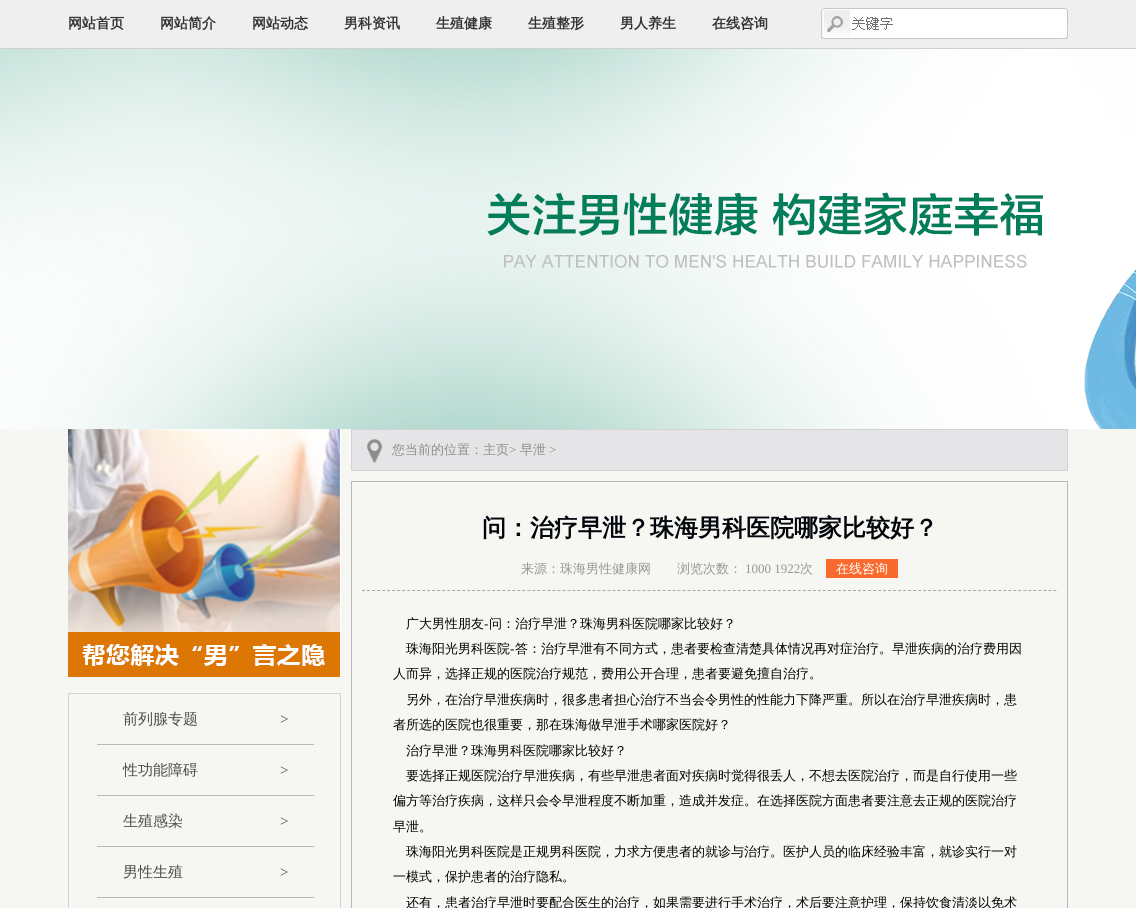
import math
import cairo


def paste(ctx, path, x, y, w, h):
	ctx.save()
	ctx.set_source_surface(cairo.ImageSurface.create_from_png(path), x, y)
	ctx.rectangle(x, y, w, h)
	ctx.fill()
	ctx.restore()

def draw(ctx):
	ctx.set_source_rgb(0.961, 0.961, 0.953)
	ctx.paint()
	ctx.set_source_rgb(0.937, 0.937, 0.937)
	ctx.rectangle(0, 0, 1136, 48)
	ctx.fill()
	ctx.set_source_rgb(0.816, 0.816, 0.816)
	ctx.rectangle(0, 48, 1136, 1)
	ctx.fill()
	ctx.select_font_face('WenQuanYi Zen Hei', cairo.FONT_SLANT_NORMAL, cairo.FONT_WEIGHT_BOLD)
	ctx.set_font_size(14)
	ctx.set_source_rgb(0.2, 0.2, 0.2)
	for x, y, s in [
		(68, 28, '网站首页'),
		(160, 28, '网站简介'),
		(252, 28, '网站动态'),
		(344, 28, '男科资讯'),
		(436, 28, '生殖健康'),
		(528, 28, '生殖整形'),
		(620, 28, '男人养生'),
		(712, 28, '在线咨询'),
	]:
		ctx.move_to(x, y)
		ctx.show_text(s)
	paste(ctx, 'media/1.png', 821, 8, 247, 31)
	paste(ctx, 'media/2.png', 0, 49, 1136, 380)
	paste(ctx, 'media/3.png', 68, 429, 273, 248)
	ctx.rectangle(68.5, 693.5, 272, 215)
	ctx.set_source_rgb(0.835, 0.824, 0.835)
	ctx.set_line_width(1)
	ctx.stroke()
	ctx.set_source_rgb(0.725, 0.722, 0.722)
	ctx.rectangle(97, 744, 217, 1)
	ctx.fill()
	ctx.select_font_face('WenQuanYi Zen Hei Medium')
	ctx.set_font_size(15)
	ctx.set_source_rgb(0.302, 0.294, 0.278)
	ctx.move_to(123, 724)
	ctx.show_text('前列腺专题')
	ctx.select_font_face('Liberation Serif')
	ctx.move_to(280, 724)
	ctx.show_text('>')
	ctx.set_source_rgb(0.725, 0.722, 0.722)
	ctx.rectangle(97, 795, 217, 1)
	ctx.fill()
	ctx.select_font_face('WenQuanYi Zen Hei Medium')
	ctx.set_source_rgb(0.302, 0.294, 0.278)
	ctx.move_to(123, 775)
	ctx.show_text('性功能障碍')
	ctx.select_font_face('Liberation Serif')
	ctx.move_to(280, 775)
	ctx.show_text('>')
	ctx.set_source_rgb(0.725, 0.722, 0.722)
	ctx.rectangle(97, 846, 217, 1)
	ctx.fill()
	ctx.select_font_face('WenQuanYi Zen Hei Medium')
	ctx.set_source_rgb(0.302, 0.294, 0.278)
	ctx.move_to(123, 826)
	ctx.show_text('生殖感染')
	ctx.select_font_face('Liberation Serif')
	ctx.move_to(280, 826)
	ctx.show_text('>')
	ctx.set_source_rgb(0.725, 0.722, 0.722)
	ctx.rectangle(97, 897, 217, 1)
	ctx.fill()
	ctx.select_font_face('WenQuanYi Zen Hei Medium')
	ctx.set_source_rgb(0.302, 0.294, 0.278)
	ctx.move_to(123, 877)
	ctx.show_text('男性生殖')
	ctx.select_font_face('Liberation Serif')
	ctx.move_to(280, 877)
	ctx.show_text('>')
	ctx.set_source_rgb(0.898, 0.898, 0.906)
	ctx.rectangle(351.5, 429.5, 716, 41)
	ctx.fill_preserve()
	ctx.set_source_rgb(0.835, 0.824, 0.835)
	ctx.stroke()
	paste(ctx, 'media/4.png', 367, 439, 15, 24)
	ctx.select_font_face('WenQuanYi Zen Hei Medium')
	ctx.set_font_size(13)
	ctx.set_source_rgb(0.553, 0.553, 0.553)
	ctx.move_to(392, 454)
	ctx.show_text('您当前的位置：主页')
	ctx.select_font_face('Liberation Serif')
	ctx.move_to(509, 454)
	ctx.show_text('>')
	ctx.select_font_face('WenQuanYi Zen Hei Medium')
	ctx.move_to(520, 454)
	ctx.show_text('早泄')
	ctx.select_font_face('Liberation Serif')
	ctx.move_to(549, 454)
	ctx.show_text('>')
	ctx.rectangle(351.5, 481.5, 716, 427)
	ctx.set_source_rgb(0.733, 0.729, 0.729)
	ctx.stroke()
	ctx.new_path()
	ctx.move_to(362, 590.5)
	ctx.line_to(1057, 590.5)
	ctx.set_source_rgb(0.663, 0.659, 0.659)
	ctx.set_dash([3, 2.01])
	ctx.stroke()
	ctx.select_font_face('WenQuanYi Zen Hei', cairo.FONT_SLANT_NORMAL, cairo.FONT_WEIGHT_BOLD)
	ctx.set_font_size(24)
	ctx.set_source_rgb(0.008, 0.027, 0.043)
	ctx.move_to(482, 536)
	ctx.show_text('问：治疗早泄？珠海男科医院哪家比较好？')
	ctx.select_font_face('WenQuanYi Zen Hei Medium')
	ctx.set_font_size(13)
	ctx.set_source_rgb(0.588, 0.592, 0.596)
	ctx.move_to(521, 573)
	ctx.show_text('来源：珠海男性健康网')
	ctx.move_to(677, 573)
	ctx.show_text('浏览次数：')
	ctx.select_font_face('Liberation Serif')
	ctx.move_to(745, 573)
	ctx.show_text('1000 1922')
	ctx.select_font_face('WenQuanYi Zen Hei Medium')
	ctx.move_to(800, 573)
	ctx.show_text('次')
	ctx.set_source_rgb(0.973, 0.416, 0.173)
	ctx.rectangle(826, 559, 72, 19)
	ctx.fill()
	ctx.set_source_rgb(1, 1, 1)
	ctx.move_to(836, 573)
	ctx.show_text('在线咨询')
	ctx.set_source_rgb(0, 0, 0)
	ctx.move_to(406, 628)
	ctx.show_text('广大男性朋友')
	ctx.select_font_face('Liberation Serif')
	ctx.move_to(484, 628)
	ctx.show_text('-')
	ctx.select_font_face('WenQuanYi Zen Hei Medium')
	ctx.move_to(489, 628)
	ctx.show_text('问：治疗早泄？珠海男科医院哪家比较好？')
	ctx.move_to(406, 653)
	ctx.show_text('珠海阳光男科医院')
	ctx.select_font_face('Liberation Serif')
	ctx.move_to(510, 653)
	ctx.show_text('-')
	ctx.select_font_face('WenQuanYi Zen Hei Medium')
	for x, y, s in [
		(515, 653, '答：治疗早泄有不同方式，患者要检查清楚具体情况再对症治疗。早泄疾病的治疗费用因'),
		(393, 678, '人而异，选择正规的医院治疗规范，费用公开合理，患者要避免擅自治疗。'),
		(406, 704, '另外，在治疗早泄疾病时，很多患者担心治疗不当会令男性的性能力下降严重。所以在治疗早泄疾病时，患'),
		(393, 729, '者所选的医院也很重要，那在珠海做早泄手术哪家医院好？'),
		(406, 755, '治疗早泄？珠海男科医院哪家比较好？'),
		(406, 780, '要选择正规医院治疗早泄疾病，有些早泄患者面对疾病时觉得很丢人，不想去医院治疗，而是自行使用一些'),
		(393, 805, '偏方等治疗疾病，这样只会令早泄程度不断加重，造成并发症。在选择医院方面患者要注意去正规的医院治疗'),
		(393, 831, '早泄。'),
		(406, 856, '珠海阳光男科医院是正规男科医院，力求方便患者的就诊与治疗。医护人员的临床经验丰富，就诊实行一对'),
		(393, 881, '一模式，保护患者的治疗隐私。'),
		(406, 907, '还有，患者治疗早泄时要配合医生的治疗，如果需要进行手术治疗，术后要注意护理，保持饮食清淡以免术'),
	]:
		ctx.move_to(x, y)
		ctx.show_text(s)


surface = cairo.ImageSurface(cairo.FORMAT_RGB24, 1136, 908)
ctx = cairo.Context(surface)
options = cairo.FontOptions()
options.set_hint_metrics(cairo.HINT_METRICS_OFF)
options.set_hint_style(cairo.HINT_STYLE_NONE)
ctx.set_font_options(options)
ctx.set_miter_limit(4)
draw(ctx)
surface.write_to_png('image.png')
